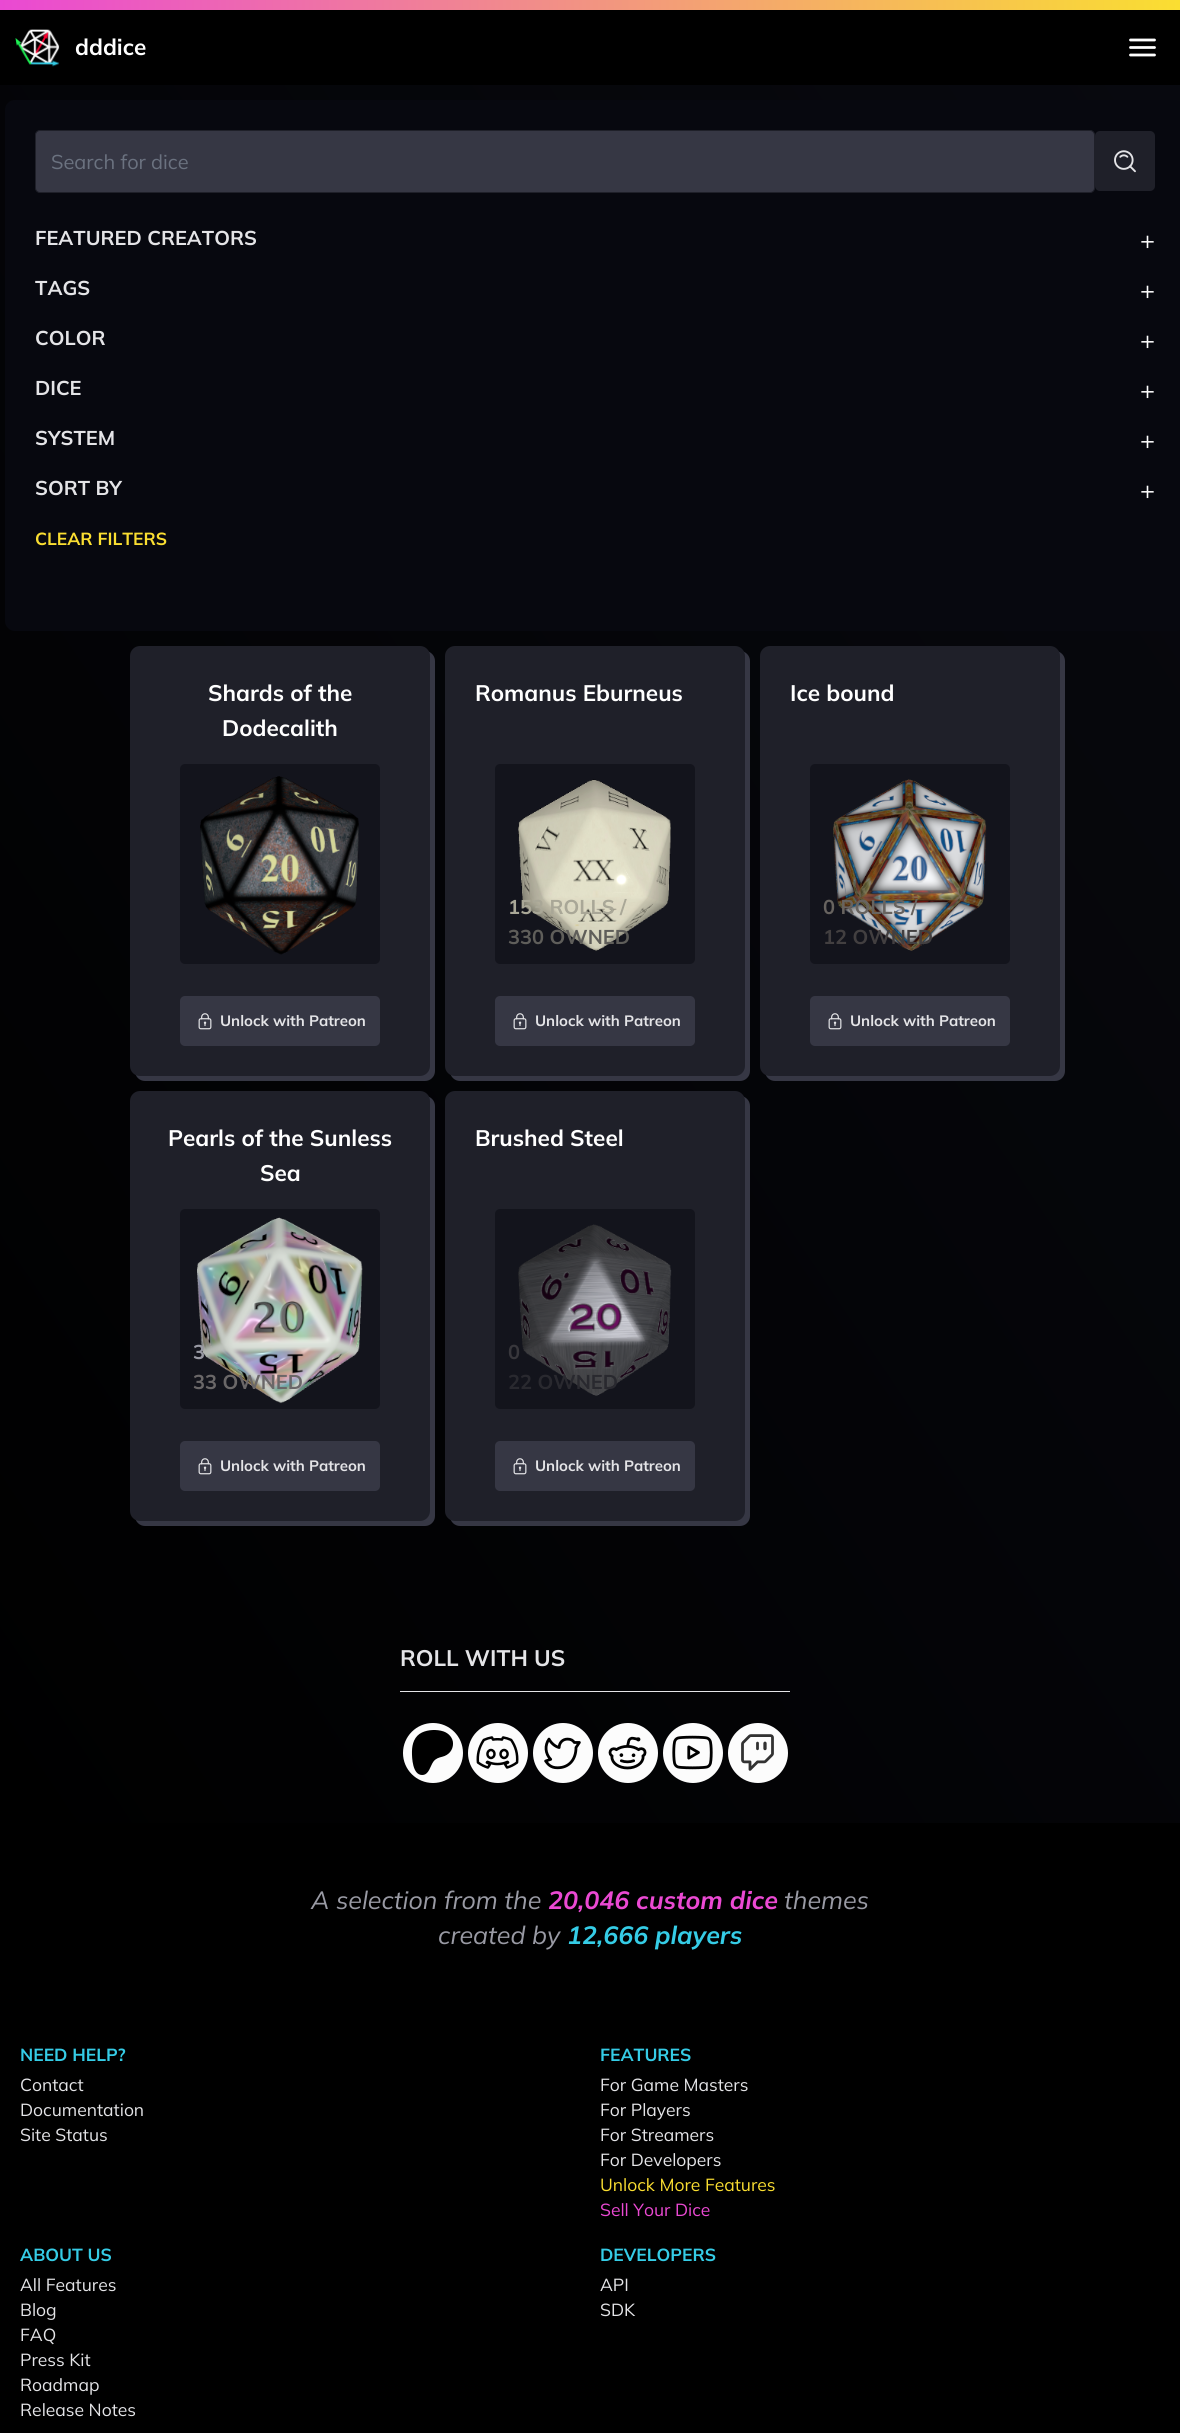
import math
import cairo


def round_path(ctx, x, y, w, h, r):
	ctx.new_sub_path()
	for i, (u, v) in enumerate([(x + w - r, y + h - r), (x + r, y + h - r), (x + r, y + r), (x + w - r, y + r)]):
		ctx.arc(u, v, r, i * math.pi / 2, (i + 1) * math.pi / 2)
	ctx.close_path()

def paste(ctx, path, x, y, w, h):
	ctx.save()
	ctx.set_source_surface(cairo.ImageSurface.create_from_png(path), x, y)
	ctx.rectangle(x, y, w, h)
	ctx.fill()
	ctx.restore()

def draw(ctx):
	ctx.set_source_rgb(1, 1, 1)
	ctx.paint()
	gradient = cairo.LinearGradient(0, 5, 1180, 5)
	gradient.add_color_stop_rgba(0, 0.918, 0.286, 0.827, 1)
	gradient.add_color_stop_rgba(1, 0.98, 0.871, 0.192, 1)
	ctx.set_source(gradient)
	ctx.rectangle(0, 0, 1180, 10)
	ctx.fill()
	ctx.set_source_rgb(0, 0, 0)
	ctx.rectangle(0, 10, 1180, 75)
	ctx.fill()
	paste(ctx, 'media/1.png', 15, 29, 45, 38)
	ctx.select_font_face('Mulish', cairo.FONT_SLANT_NORMAL, cairo.FONT_WEIGHT_BOLD)
	ctx.set_font_size(22.5)
	ctx.set_source_rgb(1, 1, 1)
	ctx.move_to(75, 55)
	ctx.show_text('dddice')
	ctx.new_path()
	ctx.move_to(1130.5, 47.5)
	ctx.line_to(1154.5, 47.5)
	ctx.move_to(1130.5, 55)
	ctx.line_to(1154.5, 55)
	ctx.move_to(1130.5, 40)
	ctx.line_to(1154.5, 40)
	ctx.set_line_width(2.8)
	ctx.set_line_cap(cairo.LINE_CAP_ROUND)
	ctx.set_line_join(cairo.LINE_JOIN_ROUND)
	ctx.stroke()
	gradient = cairo.LinearGradient(-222, 1493, 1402, 400)
	gradient.add_color_stop_rgba(0, 0, 0, 0, 1)
	gradient.add_color_stop_rgba(1, 0.031, 0.035, 0.059, 1)
	ctx.set_source(gradient)
	ctx.rectangle(0, 85, 1180, 1738)
	ctx.fill()
	ctx.set_source_rgb(0.031, 0.035, 0.059)
	round_path(ctx, 5, 100, 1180, 531, 10)
	ctx.fill()
	ctx.set_source_rgb(0.212, 0.216, 0.267)
	round_path(ctx, 35.5, 130.5, 1059, 62, 4.5)
	ctx.fill_preserve()
	ctx.set_source_rgb(0.122, 0.125, 0.161)
	ctx.set_line_width(1)
	ctx.set_line_cap(cairo.LINE_CAP_BUTT)
	ctx.set_line_join(cairo.LINE_JOIN_MITER)
	ctx.stroke()
	ctx.select_font_face('Mulish')
	ctx.set_font_size(20)
	ctx.set_source_rgb(0.42, 0.447, 0.502)
	ctx.move_to(51, 169)
	ctx.show_text('Search for dice')
	ctx.set_source_rgb(0.122, 0.125, 0.161)
	round_path(ctx, 1095, 131, 60, 60, 5)
	ctx.fill()
	paste(ctx, 'media/2.png', 1114, 150, 22, 23)
	ctx.select_font_face('Mulish', cairo.FONT_SLANT_NORMAL, cairo.FONT_WEIGHT_BOLD)
	ctx.set_source_rgb(0.894, 0.894, 0.906)
	ctx.move_to(35, 245)
	ctx.show_text('FEATURED CREATORS')
	ctx.select_font_face('Mulish')
	ctx.set_font_size(25)
	ctx.set_source_rgb(1, 1, 1)
	ctx.move_to(1140, 249)
	ctx.show_text('+')
	ctx.select_font_face('Mulish', cairo.FONT_SLANT_NORMAL, cairo.FONT_WEIGHT_BOLD)
	ctx.set_font_size(20)
	ctx.set_source_rgb(0.894, 0.894, 0.906)
	ctx.move_to(35, 295)
	ctx.show_text('TAGS')
	ctx.select_font_face('Mulish')
	ctx.set_font_size(25)
	ctx.set_source_rgb(1, 1, 1)
	ctx.move_to(1140, 299)
	ctx.show_text('+')
	ctx.select_font_face('Mulish', cairo.FONT_SLANT_NORMAL, cairo.FONT_WEIGHT_BOLD)
	ctx.set_font_size(20)
	ctx.set_source_rgb(0.894, 0.894, 0.906)
	ctx.move_to(35, 345)
	ctx.show_text('COLOR')
	ctx.select_font_face('Mulish')
	ctx.set_font_size(25)
	ctx.set_source_rgb(1, 1, 1)
	ctx.move_to(1140, 349)
	ctx.show_text('+')
	ctx.select_font_face('Mulish', cairo.FONT_SLANT_NORMAL, cairo.FONT_WEIGHT_BOLD)
	ctx.set_font_size(20)
	ctx.set_source_rgb(0.894, 0.894, 0.906)
	ctx.move_to(35, 395)
	ctx.show_text('DICE')
	ctx.select_font_face('Mulish')
	ctx.set_font_size(25)
	ctx.set_source_rgb(1, 1, 1)
	ctx.move_to(1140, 399)
	ctx.show_text('+')
	ctx.select_font_face('Mulish', cairo.FONT_SLANT_NORMAL, cairo.FONT_WEIGHT_BOLD)
	ctx.set_font_size(20)
	ctx.set_source_rgb(0.894, 0.894, 0.906)
	ctx.move_to(35, 445)
	ctx.show_text('SYSTEM')
	ctx.select_font_face('Mulish')
	ctx.set_font_size(25)
	ctx.set_source_rgb(1, 1, 1)
	ctx.move_to(1140, 449)
	ctx.show_text('+')
	ctx.select_font_face('Mulish', cairo.FONT_SLANT_NORMAL, cairo.FONT_WEIGHT_BOLD)
	ctx.set_font_size(20)
	ctx.set_source_rgb(0.894, 0.894, 0.906)
	ctx.move_to(35, 495)
	ctx.show_text('SORT BY')
	ctx.select_font_face('Mulish')
	ctx.set_font_size(25)
	ctx.set_source_rgb(1, 1, 1)
	ctx.move_to(1140, 499)
	ctx.show_text('+')
	ctx.select_font_face('Mulish', cairo.FONT_SLANT_NORMAL, cairo.FONT_WEIGHT_BOLD)
	ctx.set_font_size(17.5)
	ctx.set_source_rgb(0.98, 0.871, 0.192)
	ctx.move_to(35, 545)
	ctx.show_text('CLEAR FILTERS')
	ctx.set_source_rgb(0.212, 0.216, 0.267)
	round_path(ctx, 135, 651, 300, 430, 10)
	ctx.fill()
	ctx.set_source_rgb(0.122, 0.125, 0.161)
	round_path(ctx, 130, 646, 300, 430, 10)
	ctx.fill()
	ctx.set_font_size(22.5)
	ctx.set_source_rgb(1, 1, 1)
	ctx.move_to(208, 701)
	ctx.show_text('Shards of the')
	ctx.move_to(222, 736)
	ctx.show_text('Dodecalith')
	ctx.set_source_rgb(0.078, 0.082, 0.11)
	round_path(ctx, 180, 764, 200, 200, 5)
	ctx.fill()
	paste(ctx, 'media/3.png', 200, 776, 159, 179)
	ctx.set_source_rgb(0.212, 0.216, 0.267)
	round_path(ctx, 180, 996, 200, 50, 5)
	ctx.fill()
	paste(ctx, 'media/4.png', 198, 1013, 14, 17)
	ctx.set_font_size(15)
	ctx.set_source_rgb(0.894, 0.894, 0.906)
	ctx.move_to(220, 1026)
	ctx.show_text('Unlock with Patreon')
	ctx.set_source_rgb(0.212, 0.216, 0.267)
	round_path(ctx, 450, 651, 300, 430, 10)
	ctx.fill()
	ctx.set_source_rgb(0.122, 0.125, 0.161)
	round_path(ctx, 445, 646, 300, 430, 10)
	ctx.fill()
	ctx.set_font_size(22.5)
	ctx.set_source_rgb(1, 1, 1)
	ctx.move_to(475, 701)
	ctx.show_text('Romanus Eburneus')
	ctx.set_source_rgb(0.078, 0.082, 0.11)
	round_path(ctx, 495, 764, 200, 200, 5)
	ctx.fill()
	paste(ctx, 'media/5.png', 518, 779, 153, 172)
	ctx.set_font_size(20)
	ctx.set_source_rgb(0.663, 0.655, 0.592)
	ctx.move_to(508, 914)
	ctx.show_text('153 ROLLS /')
	ctx.set_source_rgb(0.373, 0.369, 0.353)
	ctx.move_to(508, 944)
	ctx.show_text('330 OWNED')
	ctx.set_source_rgb(0.212, 0.216, 0.267)
	round_path(ctx, 495, 996, 200, 50, 5)
	ctx.fill()
	paste(ctx, 'media/4.png', 513, 1013, 14, 17)
	ctx.set_font_size(15)
	ctx.set_source_rgb(0.894, 0.894, 0.906)
	ctx.move_to(535, 1026)
	ctx.show_text('Unlock with Patreon')
	ctx.set_source_rgb(0.212, 0.216, 0.267)
	round_path(ctx, 765, 651, 300, 430, 10)
	ctx.fill()
	ctx.set_source_rgb(0.122, 0.125, 0.161)
	round_path(ctx, 760, 646, 300, 430, 10)
	ctx.fill()
	ctx.set_font_size(22.5)
	ctx.set_source_rgb(1, 1, 1)
	ctx.move_to(790, 701)
	ctx.show_text('Ice bound')
	ctx.set_source_rgb(0.078, 0.082, 0.11)
	round_path(ctx, 810, 764, 200, 200, 5)
	ctx.fill()
	paste(ctx, 'media/6.png', 833, 779, 154, 172)
	ctx.set_font_size(20)
	ctx.set_source_rgb(0.404, 0.388, 0.373)
	ctx.move_to(823, 914)
	ctx.show_text('0 ROLLS /')
	ctx.set_source_rgb(0.259, 0.247, 0.251)
	ctx.move_to(823, 944)
	ctx.show_text('12 OWNED')
	ctx.set_source_rgb(0.212, 0.216, 0.267)
	round_path(ctx, 810, 996, 200, 50, 5)
	ctx.fill()
	paste(ctx, 'media/4.png', 828, 1013, 14, 17)
	ctx.set_font_size(15)
	ctx.set_source_rgb(0.894, 0.894, 0.906)
	ctx.move_to(850, 1026)
	ctx.show_text('Unlock with Patreon')
	ctx.set_source_rgb(0.212, 0.216, 0.267)
	round_path(ctx, 135, 1096, 300, 430, 10)
	ctx.fill()
	ctx.set_source_rgb(0.122, 0.125, 0.161)
	round_path(ctx, 130, 1091, 300, 430, 10)
	ctx.fill()
	ctx.set_font_size(22.5)
	ctx.set_source_rgb(1, 1, 1)
	ctx.move_to(168, 1146)
	ctx.show_text('Pearls of the Sunless')
	ctx.move_to(260, 1181)
	ctx.show_text('Sea')
	ctx.set_source_rgb(0.078, 0.082, 0.11)
	round_path(ctx, 180, 1209, 200, 200, 5)
	ctx.fill()
	paste(ctx, 'media/7.png', 197, 1217, 166, 187)
	ctx.set_font_size(20)
	ctx.set_source_rgb(0.6, 0.604, 0.643)
	ctx.move_to(193, 1359)
	ctx.show_text('3')
	ctx.set_source_rgb(0.416, 0.404, 0.408)
	ctx.move_to(193, 1389)
	ctx.show_text('33 OWNED')
	ctx.set_source_rgb(0.212, 0.216, 0.267)
	round_path(ctx, 180, 1441, 200, 50, 5)
	ctx.fill()
	paste(ctx, 'media/4.png', 198, 1458, 14, 17)
	ctx.set_font_size(15)
	ctx.set_source_rgb(0.894, 0.894, 0.906)
	ctx.move_to(220, 1471)
	ctx.show_text('Unlock with Patreon')
	ctx.set_source_rgb(0.212, 0.216, 0.267)
	round_path(ctx, 450, 1096, 300, 430, 10)
	ctx.fill()
	ctx.set_source_rgb(0.122, 0.125, 0.161)
	round_path(ctx, 445, 1091, 300, 430, 10)
	ctx.fill()
	ctx.set_font_size(22.5)
	ctx.set_source_rgb(1, 1, 1)
	ctx.move_to(475, 1146)
	ctx.show_text('Brushed Steel')
	ctx.set_source_rgb(0.078, 0.082, 0.11)
	round_path(ctx, 495, 1209, 200, 200, 5)
	ctx.fill()
	paste(ctx, 'media/8.png', 518, 1224, 154, 172)
	ctx.set_font_size(20)
	ctx.set_source_rgb(0.22, 0.216, 0.235)
	ctx.move_to(508, 1359)
	ctx.show_text('0')
	ctx.set_source_rgb(0.161, 0.161, 0.184)
	ctx.move_to(508, 1389)
	ctx.show_text('22 OWNED')
	ctx.set_source_rgb(0.212, 0.216, 0.267)
	round_path(ctx, 495, 1441, 200, 50, 5)
	ctx.fill()
	paste(ctx, 'media/4.png', 513, 1458, 14, 17)
	ctx.set_font_size(15)
	ctx.set_source_rgb(0.894, 0.894, 0.906)
	ctx.move_to(535, 1471)
	ctx.show_text('Unlock with Patreon')
	ctx.rectangle(400, 1691, 390, 1)
	ctx.fill()
	ctx.set_font_size(22.5)
	ctx.move_to(400, 1666)
	ctx.show_text('ROLL WITH US')
	ctx.set_source_rgb(0.988, 0.988, 0.988)
	ctx.new_path()
	ctx.arc(433, 1753, 30, 0, 2 * math.pi)
	ctx.fill()
	paste(ctx, 'media/9.png', 411, 1730, 42, 45)
	ctx.arc(498, 1753, 30, 0, 2 * math.pi)
	ctx.fill()
	paste(ctx, 'media/10.png', 476, 1736, 43, 33)
	ctx.arc(563, 1753, 30, 0, 2 * math.pi)
	ctx.fill()
	paste(ctx, 'media/11.png', 544, 1737, 37, 33)
	ctx.arc(628, 1753, 30, 0, 2 * math.pi)
	ctx.fill()
	paste(ctx, 'media/12.png', 608, 1736, 39, 34)
	ctx.arc(693, 1753, 30, 0, 2 * math.pi)
	ctx.fill()
	paste(ctx, 'media/13.png', 672, 1735, 41, 35)
	ctx.arc(758, 1753, 30, 0, 2 * math.pi)
	ctx.fill()
	paste(ctx, 'media/14.png', 741, 1734, 33, 37)
	ctx.set_source_rgb(0, 0, 0)
	ctx.rectangle(0, 1823, 1180, 610)
	ctx.fill()
	ctx.select_font_face('Mulish', cairo.FONT_SLANT_ITALIC)
	ctx.set_font_size(25)
	ctx.set_source_rgb(0.6, 0.604, 0.643)
	ctx.move_to(311, 1909)
	ctx.show_text('A selection from the')
	ctx.select_font_face('Mulish', cairo.FONT_SLANT_ITALIC, cairo.FONT_WEIGHT_BOLD)
	ctx.set_source_rgb(0.918, 0.286, 0.827)
	ctx.move_to(548, 1909)
	ctx.show_text('20,046 custom dice')
	ctx.select_font_face('Mulish', cairo.FONT_SLANT_ITALIC)
	ctx.set_source_rgb(0.6, 0.604, 0.643)
	ctx.move_to(784, 1909)
	ctx.show_text('themes')
	ctx.move_to(438, 1944)
	ctx.show_text('created by')
	ctx.select_font_face('Mulish', cairo.FONT_SLANT_ITALIC, cairo.FONT_WEIGHT_BOLD)
	ctx.set_source_rgb(0.208, 0.8, 0.902)
	ctx.move_to(567, 1944)
	ctx.show_text('12,666 players')
	ctx.select_font_face('Mulish', cairo.FONT_SLANT_NORMAL, cairo.FONT_WEIGHT_BOLD)
	ctx.set_font_size(17.5)
	ctx.move_to(20, 2061)
	ctx.show_text('NEED HELP?')
	ctx.select_font_face('Mulish')
	ctx.set_source_rgb(0.894, 0.894, 0.906)
	for x, y, s in [
		(20, 2091, 'Contact'),
		(20, 2116, 'Documentation'),
		(20, 2141, 'Site Status'),
	]:
		ctx.move_to(x, y)
		ctx.show_text(s)
	ctx.select_font_face('Mulish', cairo.FONT_SLANT_NORMAL, cairo.FONT_WEIGHT_BOLD)
	ctx.set_source_rgb(0.208, 0.8, 0.902)
	ctx.move_to(600, 2061)
	ctx.show_text('FEATURES')
	ctx.select_font_face('Mulish')
	ctx.set_source_rgb(0.894, 0.894, 0.906)
	for x, y, s in [
		(600, 2091, 'For Game Masters'),
		(600, 2116, 'For Players'),
		(600, 2141, 'For Streamers'),
		(600, 2166, 'For Developers'),
	]:
		ctx.move_to(x, y)
		ctx.show_text(s)
	ctx.set_source_rgb(0.98, 0.871, 0.192)
	ctx.move_to(600, 2191)
	ctx.show_text('Unlock More Features')
	ctx.set_source_rgb(0.918, 0.286, 0.827)
	ctx.move_to(600, 2216)
	ctx.show_text('Sell Your Dice')
	ctx.select_font_face('Mulish', cairo.FONT_SLANT_NORMAL, cairo.FONT_WEIGHT_BOLD)
	ctx.set_source_rgb(0.208, 0.8, 0.902)
	ctx.move_to(20, 2261)
	ctx.show_text('ABOUT US')
	ctx.select_font_face('Mulish')
	ctx.set_source_rgb(0.894, 0.894, 0.906)
	for x, y, s in [
		(20, 2291, 'All Features'),
		(20, 2316, 'Blog'),
		(20, 2341, 'FAQ'),
		(20, 2366, 'Press Kit'),
		(20, 2391, 'Roadmap'),
		(20, 2416, 'Release Notes'),
	]:
		ctx.move_to(x, y)
		ctx.show_text(s)
	ctx.select_font_face('Mulish', cairo.FONT_SLANT_NORMAL, cairo.FONT_WEIGHT_BOLD)
	ctx.set_source_rgb(0.208, 0.8, 0.902)
	ctx.move_to(600, 2261)
	ctx.show_text('DEVELOPERS')
	ctx.select_font_face('Mulish')
	ctx.set_source_rgb(0.894, 0.894, 0.906)
	ctx.move_to(600, 2291)
	ctx.show_text('API')
	ctx.move_to(600, 2316)
	ctx.show_text('SDK')


surface = cairo.ImageSurface(cairo.FORMAT_RGB24, 1180, 2433)
ctx = cairo.Context(surface)
options = cairo.FontOptions()
options.set_hint_metrics(cairo.HINT_METRICS_OFF)
options.set_hint_style(cairo.HINT_STYLE_NONE)
ctx.set_font_options(options)
ctx.set_miter_limit(4)
draw(ctx)
surface.write_to_png('image.png')
